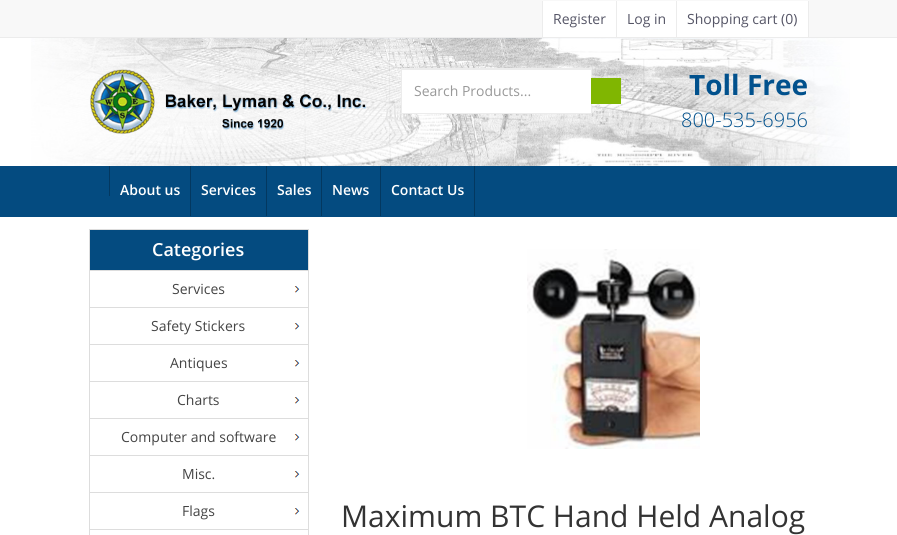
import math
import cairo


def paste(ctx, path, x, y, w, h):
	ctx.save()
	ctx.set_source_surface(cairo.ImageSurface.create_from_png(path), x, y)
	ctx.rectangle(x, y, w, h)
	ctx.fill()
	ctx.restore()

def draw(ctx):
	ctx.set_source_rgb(1, 1, 1)
	ctx.paint()
	ctx.set_source_rgb(0.969, 0.969, 0.969)
	ctx.rectangle(0, 0, 897, 37)
	ctx.fill()
	ctx.set_source_rgb(0.925, 0.925, 0.925)
	ctx.rectangle(0, 37, 897, 1)
	ctx.fill()
	ctx.set_source_rgb(1, 1, 1)
	ctx.rectangle(543, 1, 73, 36)
	ctx.fill()
	ctx.set_source_rgb(0.925, 0.925, 0.925)
	ctx.rectangle(542, 1, 1, 36)
	ctx.fill()
	ctx.select_font_face('Open Sans')
	ctx.set_font_size(14)
	ctx.set_source_rgb(0.333, 0.333, 0.4)
	ctx.move_to(553, 24)
	ctx.show_text('Register')
	ctx.set_source_rgb(1, 1, 1)
	ctx.rectangle(617, 1, 59, 36)
	ctx.fill()
	ctx.set_source_rgb(0.925, 0.925, 0.925)
	ctx.rectangle(616, 1, 1, 36)
	ctx.fill()
	ctx.set_source_rgb(0.333, 0.333, 0.4)
	ctx.move_to(627, 24)
	ctx.show_text('Log in')
	ctx.set_source_rgb(1, 1, 1)
	ctx.rectangle(677, 1, 131, 36)
	ctx.fill()
	ctx.set_source_rgb(0.925, 0.925, 0.925)
	ctx.rectangle(808, 1, 1, 36)
	ctx.rectangle(676, 1, 1, 36)
	ctx.fill()
	ctx.set_source_rgb(0.333, 0.333, 0.4)
	ctx.move_to(687, 24)
	ctx.show_text('Shopping cart (0)')
	paste(ctx, 'media/1.png', 31, 38, 819, 128)
	paste(ctx, 'media/2.png', 90, 69, 277, 65)
	ctx.set_source_rgb(1, 1, 1)
	ctx.rectangle(402, 70, 189, 43)
	ctx.fill()
	ctx.set_source_rgb(0.925, 0.925, 0.925)
	ctx.rectangle(402, 69, 189, 1)
	ctx.fill()
	ctx.rectangle(401.5, 68.5, 190, 45)
	ctx.set_line_width(1)
	ctx.stroke()
	ctx.set_source_rgb(0.6, 0.6, 0.6)
	ctx.move_to(414, 96)
	ctx.show_text('Search Products...')
	ctx.set_source_rgb(0.502, 0.714, 0.004)
	ctx.rectangle(591, 78, 30, 26)
	ctx.fill()
	ctx.select_font_face('Open Sans', cairo.FONT_SLANT_NORMAL, cairo.FONT_WEIGHT_BOLD)
	ctx.set_font_size(28)
	ctx.set_source_rgb(0.004, 0.318, 0.553)
	ctx.move_to(689, 95)
	ctx.show_text('Toll Free')
	ctx.select_font_face('Open Sans Light')
	ctx.set_font_size(20)
	ctx.move_to(681, 127)
	ctx.show_text('800-535-6956')
	ctx.set_source_rgb(0.016, 0.294, 0.502)
	ctx.rectangle(0, 166, 897, 51)
	ctx.fill()
	ctx.set_source_rgb(0.012, 0.22, 0.376)
	ctx.rectangle(109, 166, 1, 30)
	ctx.rectangle(190, 166, 1, 50)
	ctx.fill()
	ctx.select_font_face('Open Sans SemiBold')
	ctx.set_font_size(14)
	ctx.set_source_rgb(1, 1, 1)
	ctx.move_to(120, 195)
	ctx.show_text('About us')
	ctx.set_source_rgb(0.012, 0.22, 0.376)
	ctx.rectangle(266, 166, 1, 50)
	ctx.fill()
	ctx.set_source_rgb(1, 1, 1)
	ctx.move_to(201, 195)
	ctx.show_text('Services')
	ctx.set_source_rgb(0.012, 0.22, 0.376)
	ctx.rectangle(321, 166, 1, 50)
	ctx.fill()
	ctx.set_source_rgb(1, 1, 1)
	ctx.move_to(277, 195)
	ctx.show_text('Sales')
	ctx.set_source_rgb(0.012, 0.22, 0.376)
	ctx.rectangle(380, 166, 1, 50)
	ctx.fill()
	ctx.set_source_rgb(1, 1, 1)
	ctx.move_to(332, 195)
	ctx.show_text('News')
	ctx.set_source_rgb(0.012, 0.22, 0.376)
	ctx.rectangle(474, 166, 1, 50)
	ctx.fill()
	ctx.set_source_rgb(1, 1, 1)
	ctx.move_to(391, 195)
	ctx.show_text('Contact Us')
	ctx.rectangle(89.5, 229.5, 219, 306)
	ctx.set_source_rgb(0.867, 0.867, 0.867)
	ctx.stroke()
	ctx.set_source_rgb(0.016, 0.294, 0.502)
	ctx.rectangle(90, 230, 218, 40)
	ctx.fill()
	ctx.set_source_rgb(0.867, 0.867, 0.867)
	ctx.rectangle(90, 270, 218, 1)
	ctx.fill()
	ctx.set_font_size(18)
	ctx.set_source_rgb(1, 1, 1)
	ctx.move_to(152, 256)
	ctx.show_text('Categories')
	paste(ctx, 'media/3.png', 294, 286, 6, 7)
	ctx.set_source_rgb(0.867, 0.867, 0.867)
	ctx.rectangle(90, 307, 218, 1)
	ctx.fill()
	ctx.select_font_face('Open Sans')
	ctx.set_font_size(14)
	ctx.set_source_rgb(0.267, 0.267, 0.267)
	ctx.move_to(172, 294)
	ctx.show_text('Services')
	paste(ctx, 'media/3.png', 294, 323, 6, 7)
	ctx.set_source_rgb(0.867, 0.867, 0.867)
	ctx.rectangle(90, 344, 218, 1)
	ctx.fill()
	ctx.set_source_rgb(0.267, 0.267, 0.267)
	ctx.move_to(151, 331)
	ctx.show_text('Safety Stickers')
	paste(ctx, 'media/3.png', 294, 360, 6, 7)
	ctx.set_source_rgb(0.867, 0.867, 0.867)
	ctx.rectangle(90, 381, 218, 1)
	ctx.fill()
	ctx.set_source_rgb(0.267, 0.267, 0.267)
	ctx.move_to(170, 368)
	ctx.show_text('Antiques')
	paste(ctx, 'media/3.png', 294, 397, 6, 7)
	ctx.set_source_rgb(0.867, 0.867, 0.867)
	ctx.rectangle(90, 418, 218, 1)
	ctx.fill()
	ctx.set_source_rgb(0.267, 0.267, 0.267)
	ctx.move_to(177, 405)
	ctx.show_text('Charts')
	paste(ctx, 'media/3.png', 294, 434, 6, 7)
	ctx.set_source_rgb(0.867, 0.867, 0.867)
	ctx.rectangle(90, 455, 218, 1)
	ctx.fill()
	ctx.set_source_rgb(0.267, 0.267, 0.267)
	ctx.move_to(121, 442)
	ctx.show_text('Computer and software')
	paste(ctx, 'media/3.png', 294, 471, 6, 7)
	ctx.set_source_rgb(0.867, 0.867, 0.867)
	ctx.rectangle(90, 492, 218, 1)
	ctx.fill()
	ctx.set_source_rgb(0.267, 0.267, 0.267)
	ctx.move_to(182, 479)
	ctx.show_text('Misc.')
	paste(ctx, 'media/3.png', 294, 508, 6, 7)
	ctx.set_source_rgb(0.867, 0.867, 0.867)
	ctx.rectangle(90, 529, 218, 1)
	ctx.fill()
	ctx.set_source_rgb(0.267, 0.267, 0.267)
	ctx.move_to(182, 516)
	ctx.show_text('Flags')
	paste(ctx, 'media/4.png', 527, 249, 173, 200)
	ctx.set_font_size(30)
	ctx.set_source_rgb(0.2, 0.2, 0.2)
	ctx.move_to(341, 527)
	ctx.show_text('Maximum BTC Hand Held Analog')


surface = cairo.ImageSurface(cairo.FORMAT_RGB24, 897, 535)
ctx = cairo.Context(surface)
options = cairo.FontOptions()
options.set_hint_metrics(cairo.HINT_METRICS_OFF)
options.set_hint_style(cairo.HINT_STYLE_NONE)
ctx.set_font_options(options)
ctx.set_miter_limit(4)
draw(ctx)
surface.write_to_png('image.png')
